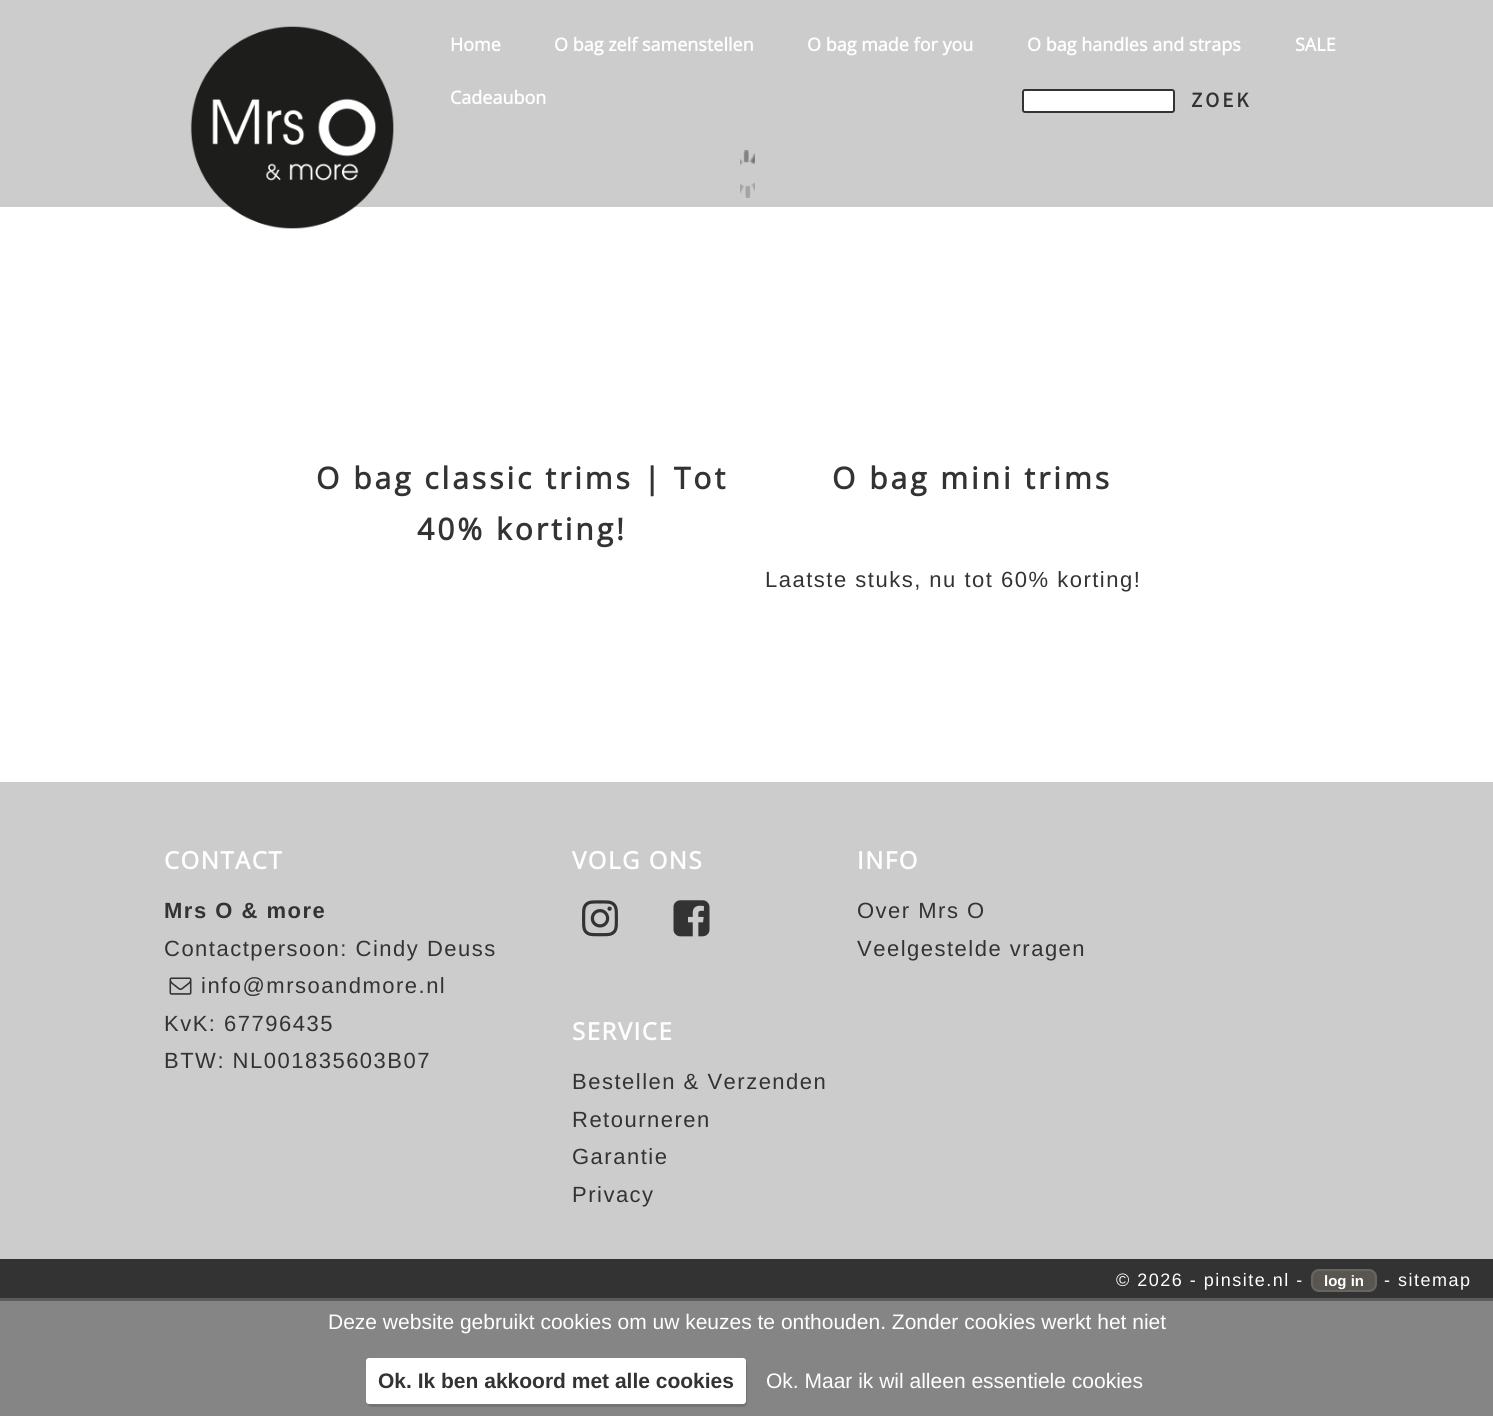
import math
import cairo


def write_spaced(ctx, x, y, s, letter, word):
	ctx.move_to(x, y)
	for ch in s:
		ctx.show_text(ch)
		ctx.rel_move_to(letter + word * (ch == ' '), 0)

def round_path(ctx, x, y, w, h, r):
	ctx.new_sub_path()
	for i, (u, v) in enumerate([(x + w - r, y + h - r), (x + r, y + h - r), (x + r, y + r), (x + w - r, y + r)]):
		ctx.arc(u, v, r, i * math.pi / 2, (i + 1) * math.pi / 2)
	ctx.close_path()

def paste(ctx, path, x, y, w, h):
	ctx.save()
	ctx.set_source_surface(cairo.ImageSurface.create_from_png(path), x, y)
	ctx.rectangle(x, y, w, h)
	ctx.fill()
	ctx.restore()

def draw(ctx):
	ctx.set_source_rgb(1, 1, 1)
	ctx.paint()
	ctx.set_source_rgb(0.522, 0.522, 0.522)
	ctx.rectangle(0, 1301, 1493, 115)
	ctx.fill()
	ctx.set_source_rgb(0.8, 0.8, 0.8)
	ctx.rectangle(0, 0, 1493, 207)
	ctx.fill()
	paste(ctx, 'media/1.png', 190, 26, 204, 203)
	ctx.select_font_face('Open Sans', cairo.FONT_SLANT_NORMAL, cairo.FONT_WEIGHT_BOLD)
	ctx.set_font_size(18)
	ctx.set_source_rgb(1, 1, 1)
	for x, y, s in [
		(450, 51, 'Home'),
		(554, 51, 'O bag zelf samenstellen'),
		(807, 51, 'O bag made for you'),
		(1027, 51, 'O bag handles and straps'),
		(1295, 51, 'SALE'),
		(450, 104, 'Cadeaubon'),
	]:
		ctx.move_to(x, y)
		ctx.show_text(s)
	round_path(ctx, 1023, 90, 151, 22, 2)
	ctx.fill_preserve()
	ctx.set_source_rgb(0.204, 0.2, 0.2)
	ctx.stroke()
	ctx.select_font_face('Source Sans Pro', cairo.FONT_SLANT_NORMAL, cairo.FONT_WEIGHT_BOLD)
	ctx.set_font_size(21)
	ctx.set_source_rgb(0.2, 0.2, 0.2)
	write_spaced(ctx, 1191, 107, 'ZOEK', 3, 0)
	paste(ctx, 'media/2.png', 740, 150, 15, 48)
	ctx.select_font_face('Open Sans', cairo.FONT_SLANT_NORMAL, cairo.FONT_WEIGHT_BOLD)
	ctx.set_font_size(30)
	for x, y, s in [
		(316, 489, 'O bag classic trims | Tot'),
		(417, 540, '40% korting!'),
		(832, 489, 'O bag mini trims'),
	]:
		write_spaced(ctx, x, y, s, 3, 0)
	ctx.select_font_face('Liberation Sans')
	ctx.set_font_size(22)
	write_spaced(ctx, 765, 587, 'Laatste stuks, nu tot 60% korting!', 1.5, 0)
	ctx.set_source_rgb(0.8, 0.8, 0.8)
	ctx.rectangle(0, 782, 1493, 477)
	ctx.fill()
	ctx.select_font_face('Open Sans', cairo.FONT_SLANT_NORMAL, cairo.FONT_WEIGHT_BOLD)
	ctx.set_font_size(24)
	ctx.set_source_rgb(1, 1, 1)
	write_spaced(ctx, 164, 869, 'CONTACT', 1.5, 0)
	ctx.select_font_face('Liberation Sans', cairo.FONT_SLANT_NORMAL, cairo.FONT_WEIGHT_BOLD)
	ctx.set_font_size(22)
	ctx.set_source_rgb(0.2, 0.2, 0.2)
	write_spaced(ctx, 164, 918, 'Mrs O & more', 1.5, 0)
	ctx.select_font_face('Liberation Sans')
	write_spaced(ctx, 164, 956, 'Contactpersoon: Cindy Deuss', 1.5, 0)
	paste(ctx, 'media/3.png', 169, 977, 23, 18)
	for x, y, s in [
		(201, 993, 'info@mrsoandmore.nl'),
		(164, 1031, 'KvK: 67796435'),
		(164, 1068, 'BTW: NL001835603B07'),
	]:
		write_spaced(ctx, x, y, s, 1.5, 0)
	ctx.select_font_face('Open Sans', cairo.FONT_SLANT_NORMAL, cairo.FONT_WEIGHT_BOLD)
	ctx.set_font_size(24)
	ctx.set_source_rgb(1, 1, 1)
	write_spaced(ctx, 572, 869, 'VOLG ONS', 1.5, 0)
	paste(ctx, 'media/4.png', 582, 900, 36, 37)
	paste(ctx, 'media/5.png', 673, 900, 37, 37)
	write_spaced(ctx, 857, 869, 'INFO', 1.5, 0)
	ctx.select_font_face('Liberation Sans')
	ctx.set_font_size(22)
	ctx.set_source_rgb(0.2, 0.2, 0.2)
	write_spaced(ctx, 857, 918, 'Over Mrs O', 1.5, 0)
	write_spaced(ctx, 857, 956, 'Veelgestelde vragen', 1.5, 0)
	ctx.select_font_face('Open Sans', cairo.FONT_SLANT_NORMAL, cairo.FONT_WEIGHT_BOLD)
	ctx.set_font_size(24)
	ctx.set_source_rgb(1, 1, 1)
	write_spaced(ctx, 572, 1040, 'SERVICE', 1.5, 0)
	ctx.select_font_face('Liberation Sans')
	ctx.set_font_size(22)
	ctx.set_source_rgb(0.2, 0.2, 0.2)
	for x, y, s in [
		(572, 1089, 'Bestellen & Verzenden'),
		(572, 1127, 'Retourneren'),
		(572, 1164, 'Garantie'),
		(572, 1202, 'Privacy'),
	]:
		write_spaced(ctx, x, y, s, 1.5, 0)
	ctx.rectangle(0, 1259, 1493, 39)
	ctx.fill()
	ctx.set_source_rgb(0.361, 0.361, 0.361)
	ctx.rectangle(0, 1298, 1493, 3)
	ctx.fill()
	ctx.set_font_size(18)
	ctx.set_source_rgb(1, 1, 1)
	write_spaced(ctx, 1116, 1286, '© 2026 - pinsite.nl -', 1.5, 0)
	ctx.set_source_rgb(0.349, 0.337, 0.318)
	round_path(ctx, 1312, 1270, 64, 21, 7)
	ctx.fill_preserve()
	ctx.set_source_rgb(0.412, 0.4, 0.38)
	ctx.stroke()
	ctx.select_font_face('Liberation Sans', cairo.FONT_SLANT_NORMAL, cairo.FONT_WEIGHT_BOLD)
	ctx.set_font_size(15)
	ctx.set_source_rgb(1, 1, 1)
	ctx.move_to(1324, 1286)
	ctx.show_text('log in')
	ctx.select_font_face('Liberation Sans')
	ctx.set_font_size(18)
	write_spaced(ctx, 1384, 1286, '- sitemap', 1.5, 0)
	ctx.set_font_size(21)
	ctx.move_to(328, 1329)
	ctx.show_text('Deze website gebruikt cookies om uw keuzes te onthouden. Zonder cookies werkt het niet')
	ctx.set_source_rgb(0.455, 0.455, 0.455)
	ctx.new_path()
	ctx.move_to(368, 1404)
	ctx.curve_to(368, 1406, 369, 1407, 371, 1407)
	ctx.line_to(744, 1407)
	ctx.line_to(746, 1406)
	ctx.line_to(747, 1404)
	ctx.line_to(747, 1363)
	ctx.line_to(746, 1361)
	ctx.line_to(746, 1401)
	ctx.curve_to(746, 1403, 744, 1404, 742, 1404)
	ctx.close_path()
	ctx.fill()
	ctx.set_source_rgb(1, 1, 1)
	round_path(ctx, 366, 1358, 380, 46, 3)
	ctx.fill()
	ctx.select_font_face('Liberation Sans', cairo.FONT_SLANT_NORMAL, cairo.FONT_WEIGHT_BOLD)
	ctx.set_source_rgb(0.2, 0.2, 0.2)
	ctx.move_to(378, 1388)
	ctx.show_text('Ok. Ik ben akkoord met alle cookies')
	ctx.select_font_face('Liberation Sans')
	ctx.set_source_rgb(1, 1, 1)
	ctx.move_to(766, 1388)
	ctx.show_text('Ok. Maar ik wil alleen essentiele cookies')


surface = cairo.ImageSurface(cairo.FORMAT_RGB24, 1493, 1416)
ctx = cairo.Context(surface)
options = cairo.FontOptions()
options.set_hint_metrics(cairo.HINT_METRICS_OFF)
options.set_hint_style(cairo.HINT_STYLE_NONE)
ctx.set_font_options(options)
ctx.set_miter_limit(4)
draw(ctx)
surface.write_to_png('image.png')
